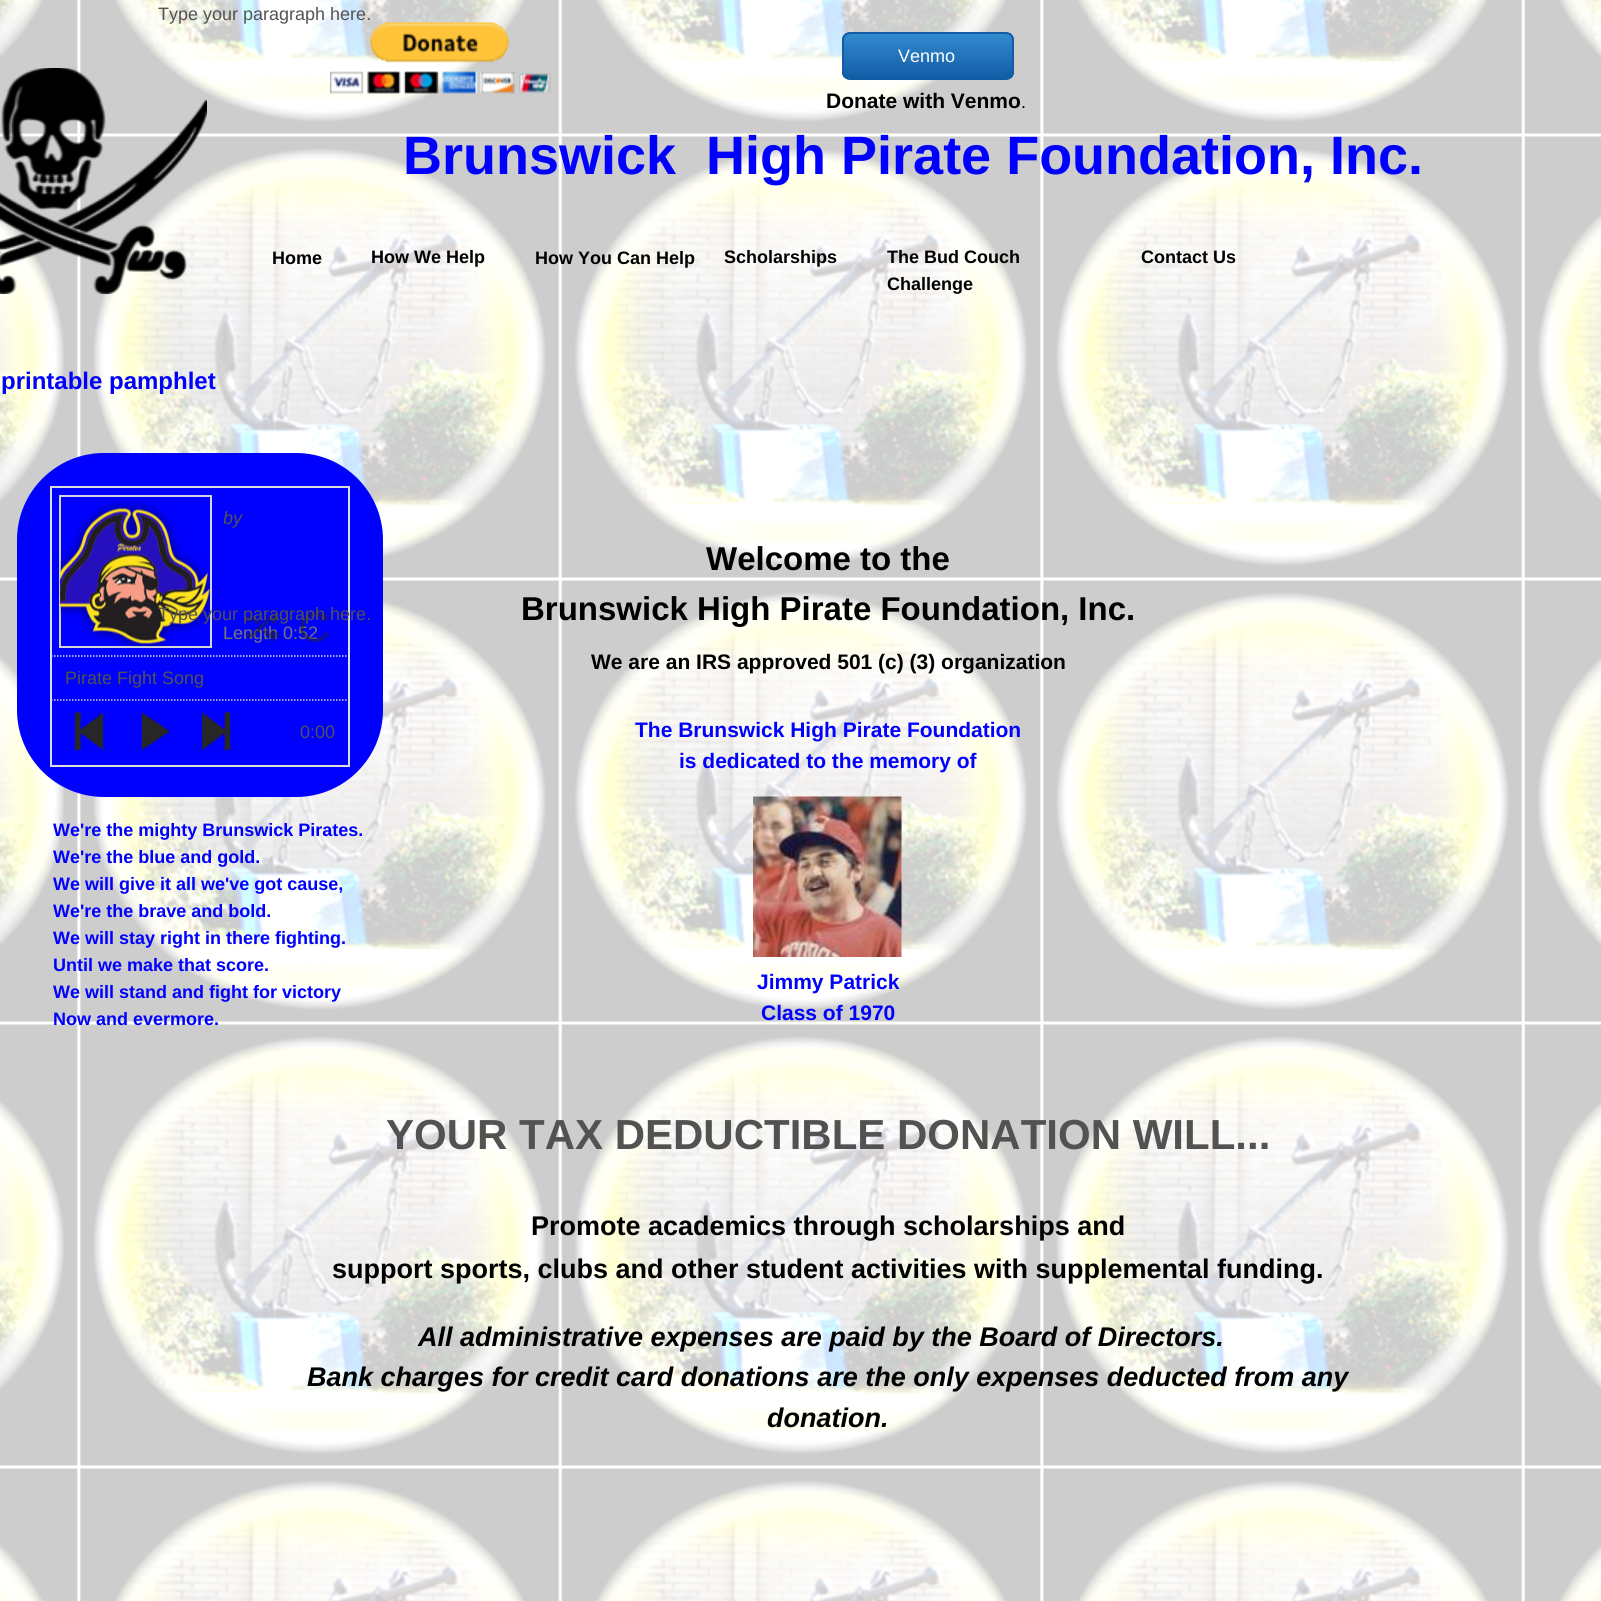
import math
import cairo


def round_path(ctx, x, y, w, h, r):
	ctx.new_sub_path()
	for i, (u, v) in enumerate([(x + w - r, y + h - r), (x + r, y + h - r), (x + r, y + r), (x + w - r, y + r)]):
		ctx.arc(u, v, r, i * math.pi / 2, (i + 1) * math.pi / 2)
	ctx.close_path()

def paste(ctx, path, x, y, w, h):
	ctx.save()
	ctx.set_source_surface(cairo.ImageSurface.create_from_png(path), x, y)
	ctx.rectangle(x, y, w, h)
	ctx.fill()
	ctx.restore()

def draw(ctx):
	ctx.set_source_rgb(1, 1, 1)
	ctx.paint()
	paste(ctx, 'media/1.png', 0, 0, 1601, 1601)
	paste(ctx, 'media/2.png', 330, 22, 221, 72)
	ctx.select_font_face('Liberation Sans')
	ctx.set_font_size(18)
	ctx.set_source_rgb(0.322, 0.322, 0.322)
	ctx.move_to(158, 20)
	ctx.show_text('Type your paragraph here.')
	ctx.save()
	round_path(ctx, 842, 32, 172, 48, 8)
	ctx.clip()
	gradient = cairo.LinearGradient(928, 33, 928, 78)
	gradient.add_color_stop_rgba(0, 0.204, 0.545, 0.812, 1)
	gradient.add_color_stop_rgba(1, 0.071, 0.361, 0.651, 1)
	ctx.set_source(gradient)
	ctx.rectangle(842, 33, 172, 45)
	ctx.fill()
	ctx.restore()
	round_path(ctx, 843, 33, 170, 46, 7)
	ctx.set_source_rgb(0.071, 0.361, 0.651)
	ctx.stroke()
	ctx.set_source_rgb(1, 1, 1)
	ctx.move_to(898, 62)
	ctx.show_text('Venmo')
	paste(ctx, 'media/3.png', 0, 68, 207, 226)
	ctx.select_font_face('Liberation Sans', cairo.FONT_SLANT_NORMAL, cairo.FONT_WEIGHT_BOLD)
	ctx.set_font_size(21)
	ctx.set_source_rgb(0, 0, 0)
	ctx.move_to(826, 108)
	ctx.show_text('Donate with Venmo')
	ctx.select_font_face('Liberation Sans')
	ctx.set_font_size(18)
	ctx.move_to(1021, 108)
	ctx.show_text('.')
	ctx.select_font_face('Liberation Sans', cairo.FONT_SLANT_NORMAL, cairo.FONT_WEIGHT_BOLD)
	ctx.set_font_size(54)
	ctx.set_source_rgb(0, 0, 1)
	ctx.move_to(403, 174)
	ctx.show_text('Brunswick  High Pirate Foundation, Inc.')
	ctx.set_font_size(18)
	ctx.set_source_rgb(0, 0, 0)
	for x, y, s in [
		(272, 264, 'Home'),
		(371, 263, 'How We Help'),
		(535, 264, 'How You Can Help'),
		(724, 263, 'Scholarships'),
		(887, 263, 'The Bud Couch'),
		(887, 290, 'Challenge'),
		(1141, 263, 'Contact Us'),
	]:
		ctx.move_to(x, y)
		ctx.show_text(s)
	ctx.set_font_size(24)
	ctx.set_source_rgb(0, 0, 1)
	ctx.move_to(1, 389)
	ctx.show_text('printable pamphlet')
	round_path(ctx, 17, 453, 366, 344, 87)
	ctx.fill()
	ctx.rectangle(51, 487, 298, 279)
	ctx.set_source_rgb(0.867, 0.867, 0.867)
	ctx.stroke()
	ctx.rectangle(60, 496, 151, 151)
	ctx.set_source_rgb(0.835, 0.835, 0.835)
	ctx.stroke()
	paste(ctx, 'media/4.png', 60, 500, 150, 147)
	ctx.save()
	ctx.rectangle(224, 504, 117, 27)
	ctx.clip()
	ctx.select_font_face('Liberation Sans', cairo.FONT_SLANT_ITALIC)
	ctx.set_font_size(18)
	ctx.set_source_rgb(0.322, 0.322, 0.322)
	ctx.move_to(223, 524)
	ctx.show_text('by')
	ctx.restore()
	ctx.select_font_face('Liberation Sans')
	ctx.set_font_size(18)
	ctx.set_source_rgb(0.467, 0.467, 0.467)
	ctx.move_to(223, 639)
	ctx.show_text('Length 0:52')
	paste(ctx, 'media/5.png', 246, 611, 35, 32)
	paste(ctx, 'media/6.png', 300, 611, 29, 32)
	ctx.new_path()
	ctx.move_to(51, 656)
	ctx.line_to(348, 656)
	ctx.set_source_rgb(0.867, 0.867, 0.867)
	ctx.set_line_width(1.5)
	ctx.set_dash([1.5, 1.5])
	ctx.stroke()
	ctx.set_source_rgb(0.322, 0.322, 0.322)
	ctx.move_to(65, 684)
	ctx.show_text('Pirate Fight Song')
	ctx.new_path()
	ctx.move_to(51, 700)
	ctx.line_to(348, 700)
	ctx.set_source_rgb(0.835, 0.835, 0.835)
	ctx.stroke()
	paste(ctx, 'media/7.png', 75, 712, 29, 39)
	paste(ctx, 'media/8.png', 141, 712, 29, 39)
	paste(ctx, 'media/9.png', 202, 712, 29, 39)
	ctx.set_source_rgb(0.322, 0.322, 0.322)
	ctx.move_to(300, 738)
	ctx.show_text('0:00')
	ctx.select_font_face('Liberation Sans', cairo.FONT_SLANT_NORMAL, cairo.FONT_WEIGHT_BOLD)
	ctx.set_font_size(33)
	ctx.set_source_rgb(0, 0, 0)
	ctx.move_to(706, 570)
	ctx.show_text('Welcome to the')
	ctx.move_to(521, 620)
	ctx.show_text('Brunswick High Pirate Foundation, Inc.')
	ctx.set_font_size(21)
	ctx.move_to(591, 669)
	ctx.show_text('We are an IRS approved 501 (c) (3) organization')
	ctx.set_source_rgb(0, 0, 1)
	for x, y, s in [
		(635, 737, 'The Brunswick High Pirate Foundation'),
		(679, 768, 'is dedicated to the memory of'),
		(757, 989, 'Jimmy Patrick'),
		(761, 1020, 'Class of 1970'),
	]:
		ctx.move_to(x, y)
		ctx.show_text(s)
	ctx.select_font_face('Liberation Sans')
	ctx.set_font_size(18)
	ctx.set_source_rgb(0.322, 0.322, 0.322)
	ctx.move_to(158, 620)
	ctx.show_text('Type your paragraph here.')
	ctx.select_font_face('Liberation Sans', cairo.FONT_SLANT_NORMAL, cairo.FONT_WEIGHT_BOLD)
	ctx.set_source_rgb(0, 0, 1)
	for x, y, s in [
		(53, 836, 'We\'re the mighty Brunswick Pirates.'),
		(53, 863, 'We\'re the blue and gold.'),
		(53, 890, 'We will give it all we\'ve got cause,'),
		(53, 917, 'We\'re the brave and bold.'),
		(53, 944, 'We will stay right in there fighting.'),
		(53, 971, 'Until we make that score.'),
		(53, 998, 'We will stand and fight for victory'),
		(53, 1025, 'Now and evermore.'),
	]:
		ctx.move_to(x, y)
		ctx.show_text(s)
	paste(ctx, 'media/10.png', 753, 796, 149, 161)
	ctx.set_font_size(42)
	ctx.set_source_rgb(0.322, 0.322, 0.322)
	ctx.move_to(386, 1149)
	ctx.show_text('YOUR TAX DEDUCTIBLE DONATION WILL...')
	ctx.set_font_size(27)
	ctx.set_source_rgb(0, 0, 0)
	ctx.move_to(531, 1235)
	ctx.show_text('Promote academics through scholarships and')
	ctx.move_to(332, 1278)
	ctx.show_text('support sports, clubs and other student activities with supplemental funding.')
	ctx.select_font_face('Liberation Sans', cairo.FONT_SLANT_ITALIC, cairo.FONT_WEIGHT_BOLD)
	for x, y, s in [
		(418, 1346, 'All administrative expenses are paid by the Board of Directors.'),
		(307, 1386, 'Bank charges for credit card donations are the only expenses deducted from any'),
		(767, 1427, 'donation.'),
	]:
		ctx.move_to(x, y)
		ctx.show_text(s)


surface = cairo.ImageSurface(cairo.FORMAT_RGB24, 1601, 1601)
ctx = cairo.Context(surface)
options = cairo.FontOptions()
options.set_hint_metrics(cairo.HINT_METRICS_OFF)
options.set_hint_style(cairo.HINT_STYLE_NONE)
ctx.set_font_options(options)
ctx.set_miter_limit(4)
draw(ctx)
surface.write_to_png('image.png')
